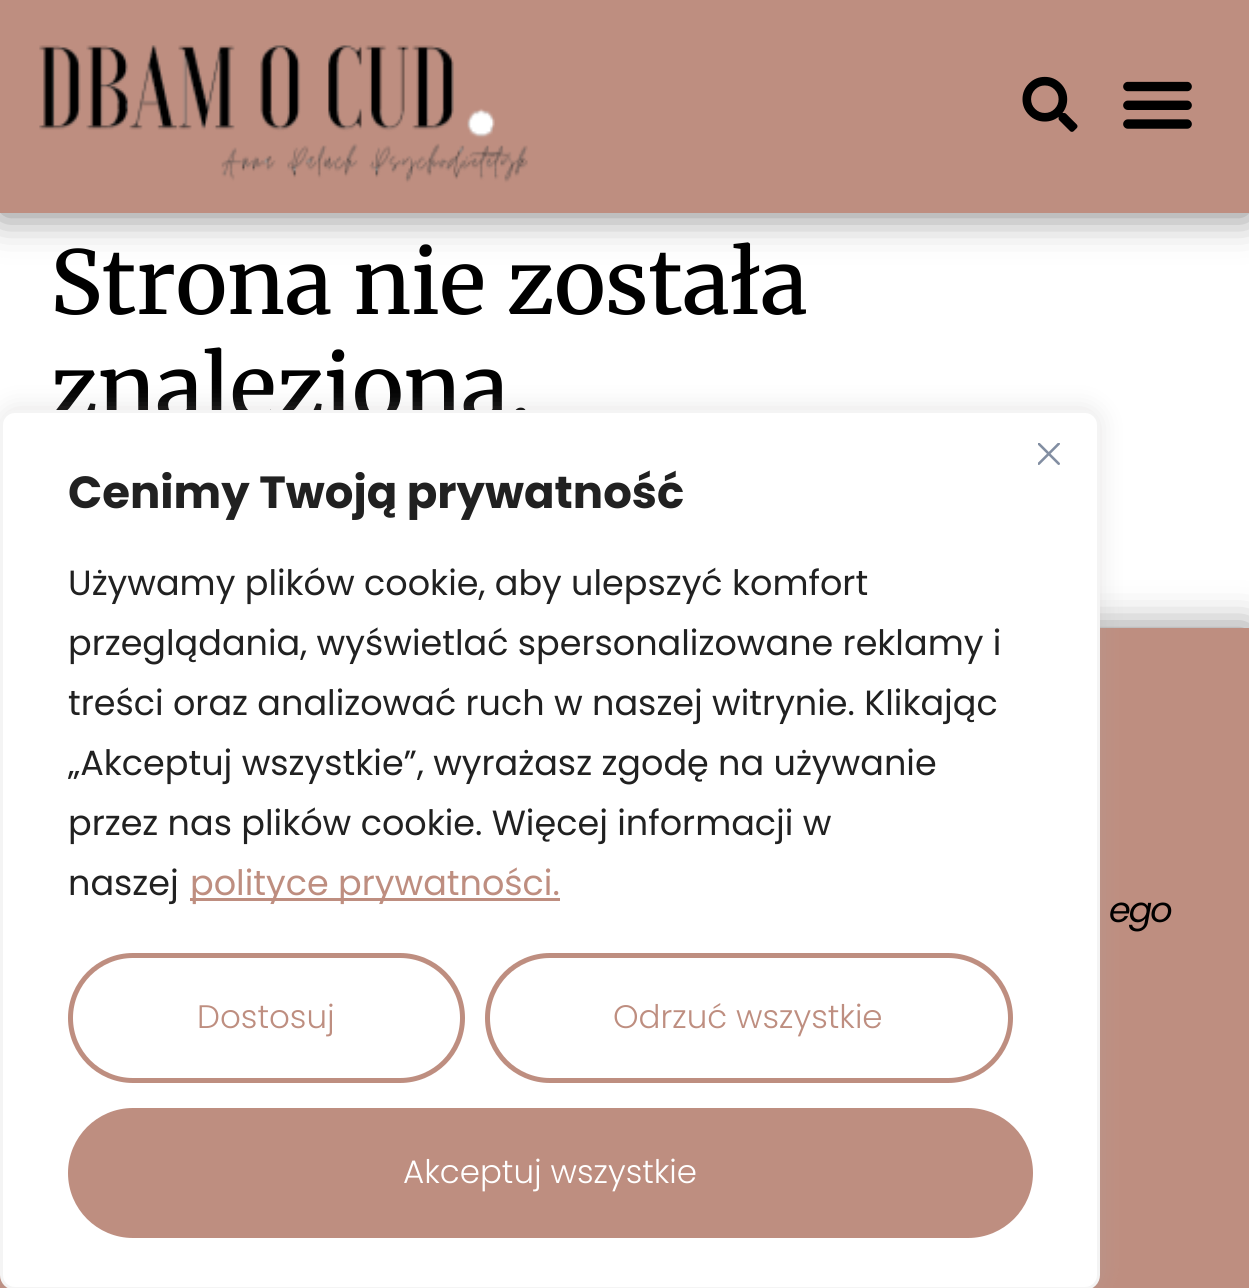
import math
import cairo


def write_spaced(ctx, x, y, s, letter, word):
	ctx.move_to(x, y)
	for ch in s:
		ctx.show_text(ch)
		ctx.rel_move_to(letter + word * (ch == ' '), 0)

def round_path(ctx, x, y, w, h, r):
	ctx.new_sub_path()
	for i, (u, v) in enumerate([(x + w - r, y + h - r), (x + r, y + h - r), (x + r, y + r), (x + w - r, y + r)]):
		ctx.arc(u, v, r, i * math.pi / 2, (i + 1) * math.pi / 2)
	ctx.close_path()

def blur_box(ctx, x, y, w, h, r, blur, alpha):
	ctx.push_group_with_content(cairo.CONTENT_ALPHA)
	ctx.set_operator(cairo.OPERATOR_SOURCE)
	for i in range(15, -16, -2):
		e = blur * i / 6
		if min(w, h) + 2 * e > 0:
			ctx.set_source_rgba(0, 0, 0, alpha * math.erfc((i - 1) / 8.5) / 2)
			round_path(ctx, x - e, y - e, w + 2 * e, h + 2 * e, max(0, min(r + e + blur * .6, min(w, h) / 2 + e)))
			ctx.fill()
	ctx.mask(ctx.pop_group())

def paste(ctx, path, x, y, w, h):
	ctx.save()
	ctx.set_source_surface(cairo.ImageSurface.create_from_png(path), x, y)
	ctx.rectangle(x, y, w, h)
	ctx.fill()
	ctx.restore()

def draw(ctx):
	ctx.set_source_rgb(1, 1, 1)
	ctx.paint()
	ctx.set_source_rgb(0, 0, 0)
	blur_box(ctx, 0, 3, 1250, 212, 0, 20, 0.5)
	ctx.set_source_rgb(0.745, 0.557, 0.502)
	ctx.rectangle(0, 0, 1249, 213)
	ctx.fill()
	paste(ctx, 'media/1.png', 39, 45, 489, 138)
	paste(ctx, 'media/2.png', 1022, 76, 56, 56)
	paste(ctx, 'media/3.png', 1123, 81, 69, 48)
	ctx.select_font_face('Merriweather Medium')
	ctx.set_font_size(87.5)
	ctx.set_source_rgb(0, 0, 0)
	ctx.move_to(50, 314)
	ctx.show_text('Strona nie została')
	ctx.move_to(50, 419)
	ctx.show_text('znaleziona.')
	ctx.set_source_rgb(0, 0, 0)
	blur_box(ctx, 0, 630, 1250, 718, 0, 20, 0.5)
	ctx.set_source_rgb(0.745, 0.557, 0.502)
	ctx.rectangle(0, 628, 1249, 660)
	ctx.fill()
	ctx.set_source_rgb(0.675, 0.671, 0.671)
	blur_box(ctx, 0, 408, 1100, 880, 15, 12.5, 0.3)
	ctx.set_source_rgb(1, 1, 1)
	round_path(ctx, 1.5, 411.5, 1097, 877, 13.5)
	ctx.fill_preserve()
	ctx.set_source_rgb(0.957, 0.957, 0.957)
	ctx.set_line_width(3)
	ctx.stroke()
	paste(ctx, 'media/4.png', 1038, 443, 22, 22)
	ctx.select_font_face('Poppins', cairo.FONT_SLANT_NORMAL, cairo.FONT_WEIGHT_BOLD)
	ctx.set_font_size(45)
	ctx.set_source_rgb(0.129, 0.129, 0.129)
	ctx.move_to(68, 508)
	ctx.show_text('Cenimy Twoją prywatność')
	ctx.select_font_face('Poppins')
	ctx.set_font_size(35)
	for x, y, s in [
		(68, 595, 'Używamy plików cookie, aby ulepszyć komfort'),
		(68, 655, 'przeglądania, wyświetlać spersonalizowane reklamy i'),
		(68, 715, 'treści oraz analizować ruch w naszej witrynie. Klikając'),
		(68, 775, '„Akceptuj wszystkie”, wyrażasz zgodę na używanie'),
		(68, 835, 'przez nas plików cookie. Więcej informacji w'),
		(68, 895, 'naszej'),
	]:
		ctx.move_to(x, y)
		ctx.show_text(s)
	ctx.set_source_rgb(0.745, 0.557, 0.502)
	ctx.rectangle(190, 898, 370, 3)
	ctx.fill()
	ctx.move_to(190, 895)
	ctx.show_text('polityce prywatności.')
	round_path(ctx, 70.5, 955.5, 392, 125, 62.5)
	ctx.set_line_width(5)
	ctx.stroke()
	ctx.select_font_face('Poppins Light')
	ctx.set_font_size(32.5)
	ctx.move_to(197, 1028)
	ctx.show_text('Dostosuj')
	round_path(ctx, 487.5, 955.5, 523, 125, 62.5)
	ctx.stroke()
	ctx.move_to(613, 1028)
	ctx.show_text('Odrzuć wszystkie')
	round_path(ctx, 70.5, 1110.5, 960, 125, 62.5)
	ctx.fill_preserve()
	ctx.stroke()
	ctx.set_source_rgb(1, 1, 1)
	ctx.move_to(403, 1183)
	ctx.show_text('Akceptuj wszystkie')
	ctx.select_font_face('Poppins', cairo.FONT_SLANT_ITALIC)
	ctx.set_font_size(35)
	ctx.set_source_rgb(0, 0, 0)
	write_spaced(ctx, 1109, 922, 'ego', -2, 0)


surface = cairo.ImageSurface(cairo.FORMAT_RGB24, 1249, 1288)
ctx = cairo.Context(surface)
options = cairo.FontOptions()
options.set_hint_metrics(cairo.HINT_METRICS_OFF)
options.set_hint_style(cairo.HINT_STYLE_NONE)
ctx.set_font_options(options)
ctx.set_miter_limit(4)
draw(ctx)
surface.write_to_png('image.png')
